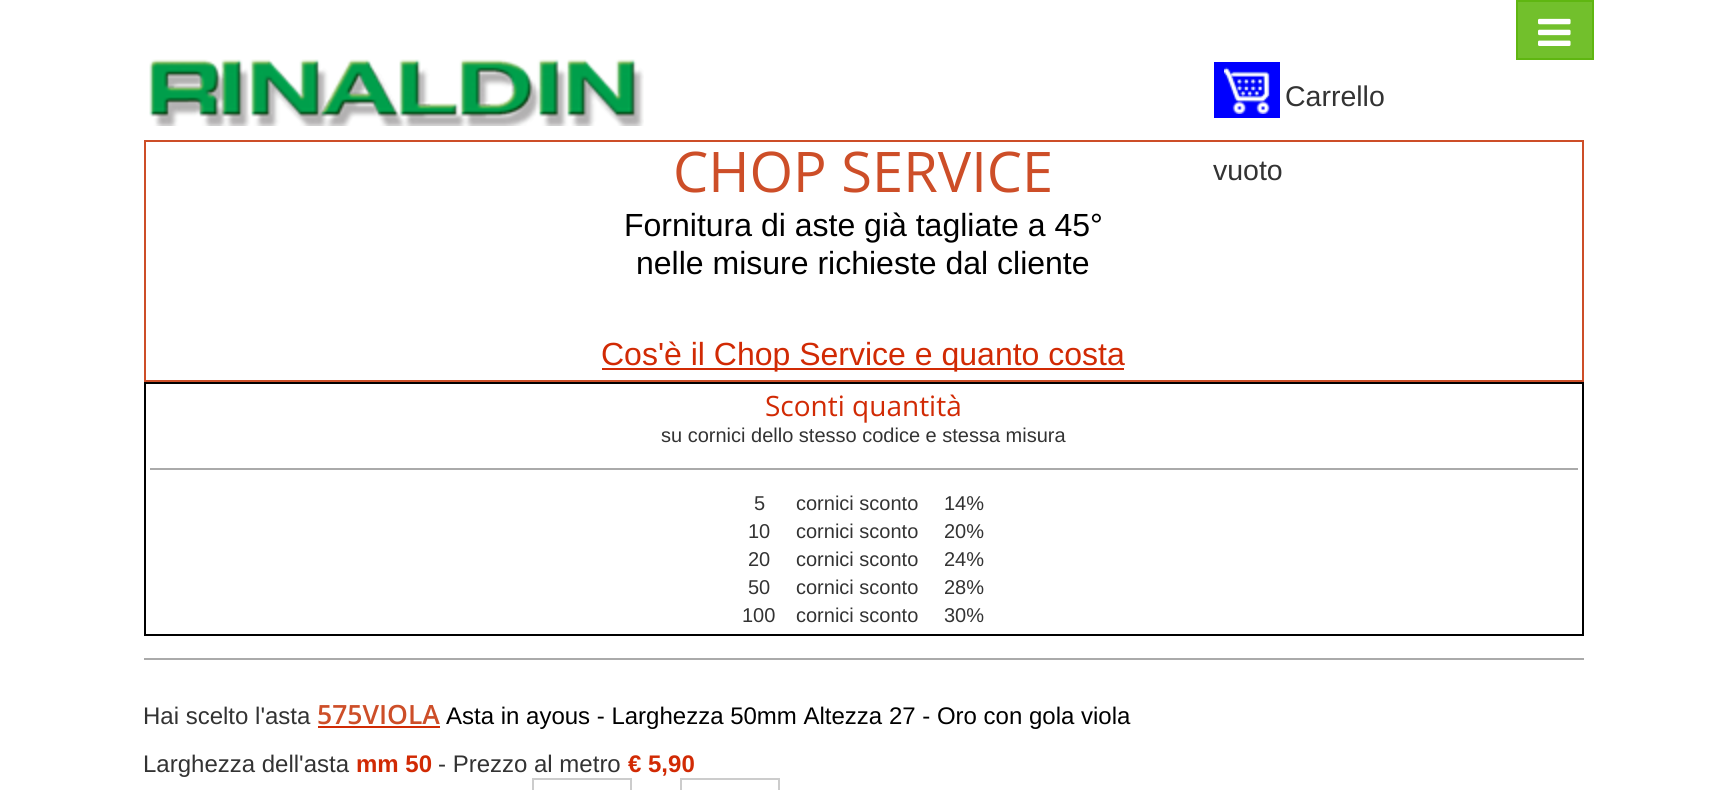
import math
import cairo


def paste(ctx, path, x, y, w, h):
	ctx.save()
	ctx.set_source_surface(cairo.ImageSurface.create_from_png(path), x, y)
	ctx.rectangle(x, y, w, h)
	ctx.fill()
	ctx.restore()

def draw(ctx):
	ctx.set_source_rgb(1, 1, 1)
	ctx.paint()
	ctx.set_source_rgb(0.447, 0.753, 0.173)
	ctx.rectangle(1517, 1, 76, 58)
	ctx.fill_preserve()
	ctx.set_source_rgb(0.373, 0.714, 0.067)
	ctx.stroke()
	paste(ctx, 'media/1.png', 1538, 18, 33, 28)
	paste(ctx, 'media/2.png', 149, 59, 495, 67)
	ctx.set_source_rgb(0, 0, 1)
	ctx.rectangle(1214, 62, 66, 56)
	ctx.fill()
	paste(ctx, 'media/3.png', 1224, 67, 46, 47)
	ctx.select_font_face('Liberation Sans')
	ctx.set_font_size(28.5)
	ctx.set_source_rgb(0.2, 0.2, 0.2)
	ctx.move_to(1285, 106)
	ctx.show_text('Carrello')
	ctx.rectangle(145, 141, 1438, 240)
	ctx.set_source_rgb(0.804, 0.306, 0.157)
	ctx.stroke()
	ctx.set_source_rgb(0.2, 0.2, 0.2)
	ctx.move_to(1213, 180)
	ctx.show_text('vuoto')
	ctx.select_font_face('Open Sans')
	ctx.set_font_size(56)
	ctx.set_source_rgb(0.804, 0.306, 0.157)
	ctx.move_to(673, 192)
	ctx.show_text('CHOP SERVICE')
	ctx.select_font_face('Liberation Sans')
	ctx.set_font_size(32)
	ctx.set_source_rgb(0, 0, 0)
	ctx.move_to(624, 236)
	ctx.show_text('Fornitura di aste già tagliate a 45°')
	ctx.move_to(636, 274)
	ctx.show_text('nelle misure richieste dal cliente')
	ctx.set_source_rgb(0.82, 0.165, 0.016)
	ctx.rectangle(602, 368, 522, 2)
	ctx.fill()
	ctx.move_to(601, 365)
	ctx.show_text('Cos\'è il Chop Service e quanto costa')
	ctx.rectangle(145, 383, 1438, 252)
	ctx.set_source_rgb(0, 0, 0)
	ctx.stroke()
	ctx.select_font_face('Open Sans')
	ctx.set_font_size(28)
	ctx.set_source_rgb(0.82, 0.165, 0.016)
	ctx.move_to(765, 416)
	ctx.show_text('Sconti quantità')
	ctx.select_font_face('Liberation Sans')
	ctx.set_font_size(20)
	ctx.set_source_rgb(0.2, 0.2, 0.2)
	ctx.move_to(661, 442)
	ctx.show_text('su cornici dello stesso codice e stessa misura')
	ctx.set_source_rgb(0.667, 0.667, 0.667)
	ctx.rectangle(150, 468, 1428, 2)
	ctx.fill()
	ctx.set_source_rgb(0.2, 0.2, 0.2)
	for x, y, s in [
		(754, 510, '5'),
		(796, 510, 'cornici sconto'),
		(944, 510, '14%'),
		(748, 538, '10'),
		(796, 538, 'cornici sconto'),
		(944, 538, '20%'),
		(748, 566, '20'),
		(796, 566, 'cornici sconto'),
		(944, 566, '24%'),
		(748, 594, '50'),
		(796, 594, 'cornici sconto'),
		(944, 594, '28%'),
		(742, 622, '100'),
		(796, 622, 'cornici sconto'),
		(944, 622, '30%'),
	]:
		ctx.move_to(x, y)
		ctx.show_text(s)
	ctx.set_source_rgb(0.667, 0.667, 0.667)
	ctx.rectangle(144, 658, 1440, 2)
	ctx.fill()
	ctx.set_font_size(24)
	ctx.set_source_rgb(0.2, 0.2, 0.2)
	ctx.move_to(143, 724)
	ctx.show_text('Hai scelto l\'asta')
	ctx.select_font_face('Open Sans SemiBold')
	ctx.set_font_size(26.5)
	ctx.set_source_rgb(0.804, 0.306, 0.157)
	ctx.move_to(317, 724)
	ctx.show_text('575VIOLA')
	ctx.set_source_rgb(0.82, 0.165, 0.016)
	ctx.rectangle(318, 726, 122, 2)
	ctx.fill()
	ctx.select_font_face('Liberation Sans')
	ctx.set_font_size(24)
	ctx.set_source_rgb(0, 0, 0)
	ctx.move_to(446, 724)
	ctx.show_text('Asta in ayous - Larghezza 50mm Altezza 27 - Oro con gola viola')
	ctx.set_source_rgb(0.2, 0.2, 0.2)
	ctx.move_to(143, 772)
	ctx.show_text('Larghezza dell\'asta')
	ctx.select_font_face('Liberation Sans', cairo.FONT_SLANT_NORMAL, cairo.FONT_WEIGHT_BOLD)
	ctx.set_source_rgb(0.82, 0.165, 0.016)
	ctx.move_to(356, 772)
	ctx.show_text('mm 50')
	ctx.select_font_face('Liberation Sans')
	ctx.set_source_rgb(0.2, 0.2, 0.2)
	ctx.move_to(438, 772)
	ctx.show_text('- Prezzo al metro')
	ctx.select_font_face('Liberation Sans', cairo.FONT_SLANT_NORMAL, cairo.FONT_WEIGHT_BOLD)
	ctx.set_source_rgb(0.82, 0.165, 0.016)
	ctx.move_to(628, 772)
	ctx.show_text('€ 5,90')
	ctx.rectangle(533, 779, 98, 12)
	ctx.set_source_rgb(0.8, 0.8, 0.8)
	ctx.stroke()
	ctx.rectangle(681, 779, 98, 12)
	ctx.stroke()


surface = cairo.ImageSurface(cairo.FORMAT_RGB24, 1726, 790)
ctx = cairo.Context(surface)
options = cairo.FontOptions()
options.set_hint_metrics(cairo.HINT_METRICS_OFF)
options.set_hint_style(cairo.HINT_STYLE_NONE)
ctx.set_font_options(options)
ctx.set_miter_limit(4)
draw(ctx)
surface.write_to_png('image.png')
